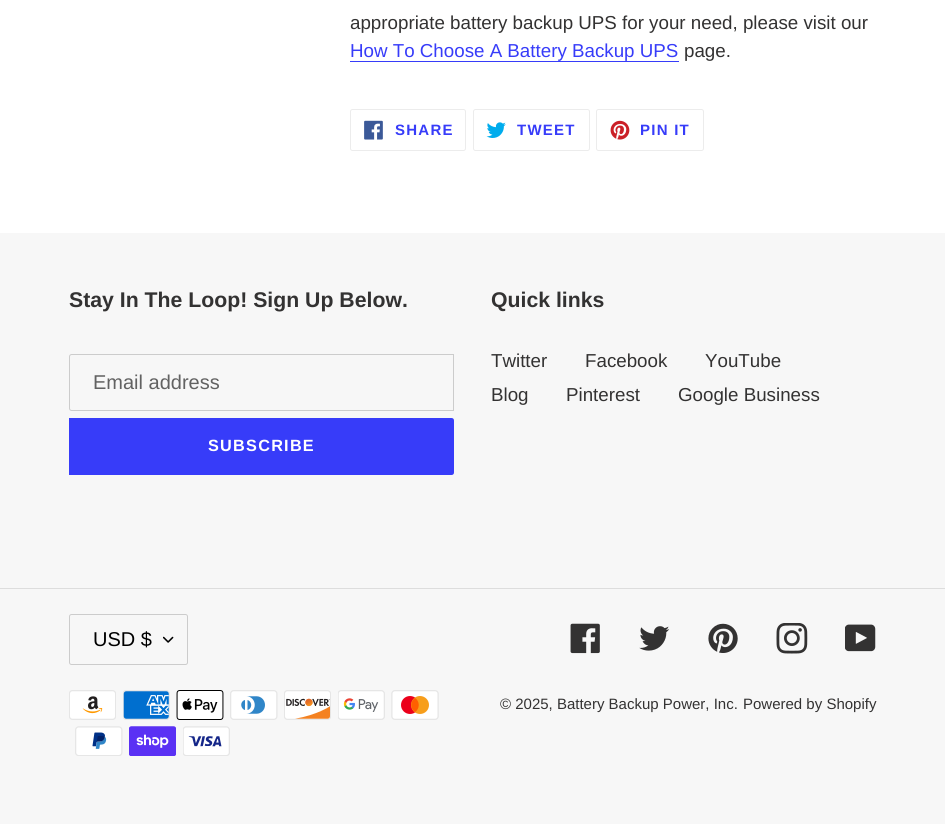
import math
import cairo


def write_spaced(ctx, x, y, s, letter, word):
	ctx.move_to(x, y)
	for ch in s:
		ctx.show_text(ch)
		ctx.rel_move_to(letter + word * (ch == ' '), 0)

def round_path(ctx, x, y, w, h, r):
	ctx.new_sub_path()
	for i, (u, v) in enumerate([(x + w - r, y + h - r), (x + r, y + h - r), (x + r, y + r), (x + w - r, y + r)]):
		ctx.arc(u, v, r, i * math.pi / 2, (i + 1) * math.pi / 2)
	ctx.close_path()

def paste(ctx, path, x, y, w, h):
	ctx.save()
	ctx.set_source_surface(cairo.ImageSurface.create_from_png(path), x, y)
	ctx.rectangle(x, y, w, h)
	ctx.fill()
	ctx.restore()

def draw(ctx):
	ctx.set_source_rgb(1, 1, 1)
	ctx.paint()
	ctx.select_font_face('Liberation Sans')
	ctx.set_font_size(18.75)
	ctx.set_source_rgb(0.2, 0.196, 0.196)
	ctx.move_to(350, 29)
	ctx.show_text('appropriate battery backup UPS for your need, please visit our')
	ctx.set_source_rgb(0.216, 0.235, 0.973)
	ctx.move_to(350, 57)
	ctx.show_text('How To Choose A Battery Backup UPS')
	ctx.rectangle(350, 61, 329, 1)
	ctx.fill()
	ctx.set_source_rgb(0.2, 0.196, 0.196)
	ctx.move_to(684, 57)
	ctx.show_text('page.')
	round_path(ctx, 350.5, 109.5, 115, 41, 2)
	ctx.set_source_rgb(0.922, 0.922, 0.922)
	ctx.set_line_width(1)
	ctx.stroke()
	paste(ctx, 'media/1.png', 364, 120, 19, 20)
	ctx.select_font_face('Liberation Sans', cairo.FONT_SLANT_NORMAL, cairo.FONT_WEIGHT_BOLD)
	ctx.set_font_size(15)
	ctx.set_source_rgb(0.216, 0.235, 0.973)
	write_spaced(ctx, 395, 135, 'SHARE', 1.25, 0)
	round_path(ctx, 473.5, 109.5, 116, 41, 2)
	ctx.set_source_rgb(0.922, 0.922, 0.922)
	ctx.stroke()
	paste(ctx, 'media/2.png', 486, 122, 20, 16)
	ctx.set_source_rgb(0.216, 0.235, 0.973)
	write_spaced(ctx, 517, 135, 'TWEET', 1.25, 0)
	round_path(ctx, 596.5, 109.5, 107, 41, 2)
	ctx.set_source_rgb(0.922, 0.922, 0.922)
	ctx.stroke()
	paste(ctx, 'media/3.png', 610, 120, 20, 20)
	ctx.set_source_rgb(0.216, 0.235, 0.973)
	write_spaced(ctx, 640, 135, 'PIN IT', 1.25, 0)
	ctx.set_source_rgb(0.965, 0.965, 0.965)
	ctx.rectangle(0, 233, 945, 591)
	ctx.fill()
	ctx.set_font_size(21.25)
	ctx.set_source_rgb(0.2, 0.196, 0.196)
	ctx.move_to(69, 307)
	ctx.show_text('Stay In The Loop! Sign Up Below.')
	ctx.new_path()
	ctx.move_to(71.5, 354.5)
	ctx.line_to(453.5, 354.5)
	ctx.line_to(453.5, 410.5)
	ctx.line_to(71.5, 410.5)
	ctx.curve_to(70.5, 410.5, 69.5, 409.5, 69.5, 408.5)
	ctx.line_to(69.5, 356.5)
	ctx.curve_to(69.5, 355.5, 70.5, 354.5, 71.5, 354.5)
	ctx.close_path()
	ctx.set_source_rgb(0.8, 0.8, 0.8)
	ctx.stroke()
	ctx.select_font_face('Liberation Sans')
	ctx.set_font_size(20)
	ctx.set_source_rgb(0.384, 0.384, 0.384)
	ctx.move_to(93, 389)
	ctx.show_text('Email address')
	ctx.set_source_rgb(0.216, 0.235, 0.973)
	ctx.new_path()
	ctx.move_to(69, 418)
	ctx.line_to(451.5, 418)
	ctx.curve_to(453, 418, 454, 419, 454, 420.5)
	ctx.line_to(454, 472.5)
	ctx.curve_to(454, 474, 453, 475, 451.5, 475)
	ctx.line_to(69, 475)
	ctx.close_path()
	ctx.fill()
	ctx.select_font_face('Liberation Sans', cairo.FONT_SLANT_NORMAL, cairo.FONT_WEIGHT_BOLD)
	ctx.set_font_size(16.25)
	ctx.set_source_rgb(1, 1, 1)
	write_spaced(ctx, 208, 451, 'SUBSCRIBE', 1.25, 0)
	ctx.set_font_size(21.25)
	ctx.set_source_rgb(0.2, 0.196, 0.196)
	ctx.move_to(491, 307)
	ctx.show_text('Quick links')
	ctx.select_font_face('Liberation Sans')
	ctx.set_font_size(18.75)
	for x, y, s in [
		(491, 367, 'Twitter'),
		(585, 367, 'Facebook'),
		(705, 367, 'YouTube'),
		(491, 401, 'Blog'),
		(566, 401, 'Pinterest'),
		(678, 401, 'Google Business'),
	]:
		ctx.move_to(x, y)
		ctx.show_text(s)
	ctx.set_source_rgb(0.867, 0.867, 0.867)
	ctx.rectangle(0, 588, 945, 1)
	ctx.fill()
	paste(ctx, 'media/4.png', 163, 636, 11, 7)
	round_path(ctx, 69.5, 614.5, 118, 50, 2)
	ctx.set_source_rgb(0.8, 0.8, 0.8)
	ctx.stroke()
	ctx.set_font_size(20)
	ctx.set_source_rgb(0, 0, 0)
	ctx.move_to(93, 646)
	ctx.show_text('USD $')
	paste(ctx, 'media/5.png', 570, 623, 30, 31)
	paste(ctx, 'media/6.png', 639, 626, 31, 25)
	paste(ctx, 'media/7.png', 708, 623, 30, 30)
	paste(ctx, 'media/8.png', 776, 623, 32, 31)
	paste(ctx, 'media/9.png', 845, 624, 31, 28)
	paste(ctx, 'media/10.png', 69, 690, 47, 30)
	paste(ctx, 'media/11.png', 123, 690, 47, 30)
	paste(ctx, 'media/12.png', 176, 690, 48, 30)
	paste(ctx, 'media/13.png', 230, 690, 48, 30)
	paste(ctx, 'media/14.png', 284, 690, 47, 30)
	paste(ctx, 'media/15.png', 338, 690, 47, 30)
	paste(ctx, 'media/16.png', 391, 690, 48, 30)
	paste(ctx, 'media/17.png', 75, 726, 48, 30)
	paste(ctx, 'media/18.png', 129, 726, 47, 30)
	paste(ctx, 'media/19.png', 183, 726, 47, 30)
	ctx.set_font_size(15)
	ctx.set_source_rgb(0.2, 0.196, 0.196)
	ctx.move_to(500, 709)
	ctx.show_text('© 2025, Battery Backup Power, Inc.')
	ctx.move_to(743, 709)
	ctx.show_text('Powered by Shopify')


surface = cairo.ImageSurface(cairo.FORMAT_RGB24, 945, 824)
ctx = cairo.Context(surface)
options = cairo.FontOptions()
options.set_hint_metrics(cairo.HINT_METRICS_OFF)
options.set_hint_style(cairo.HINT_STYLE_NONE)
ctx.set_font_options(options)
ctx.set_miter_limit(4)
draw(ctx)
surface.write_to_png('image.png')
